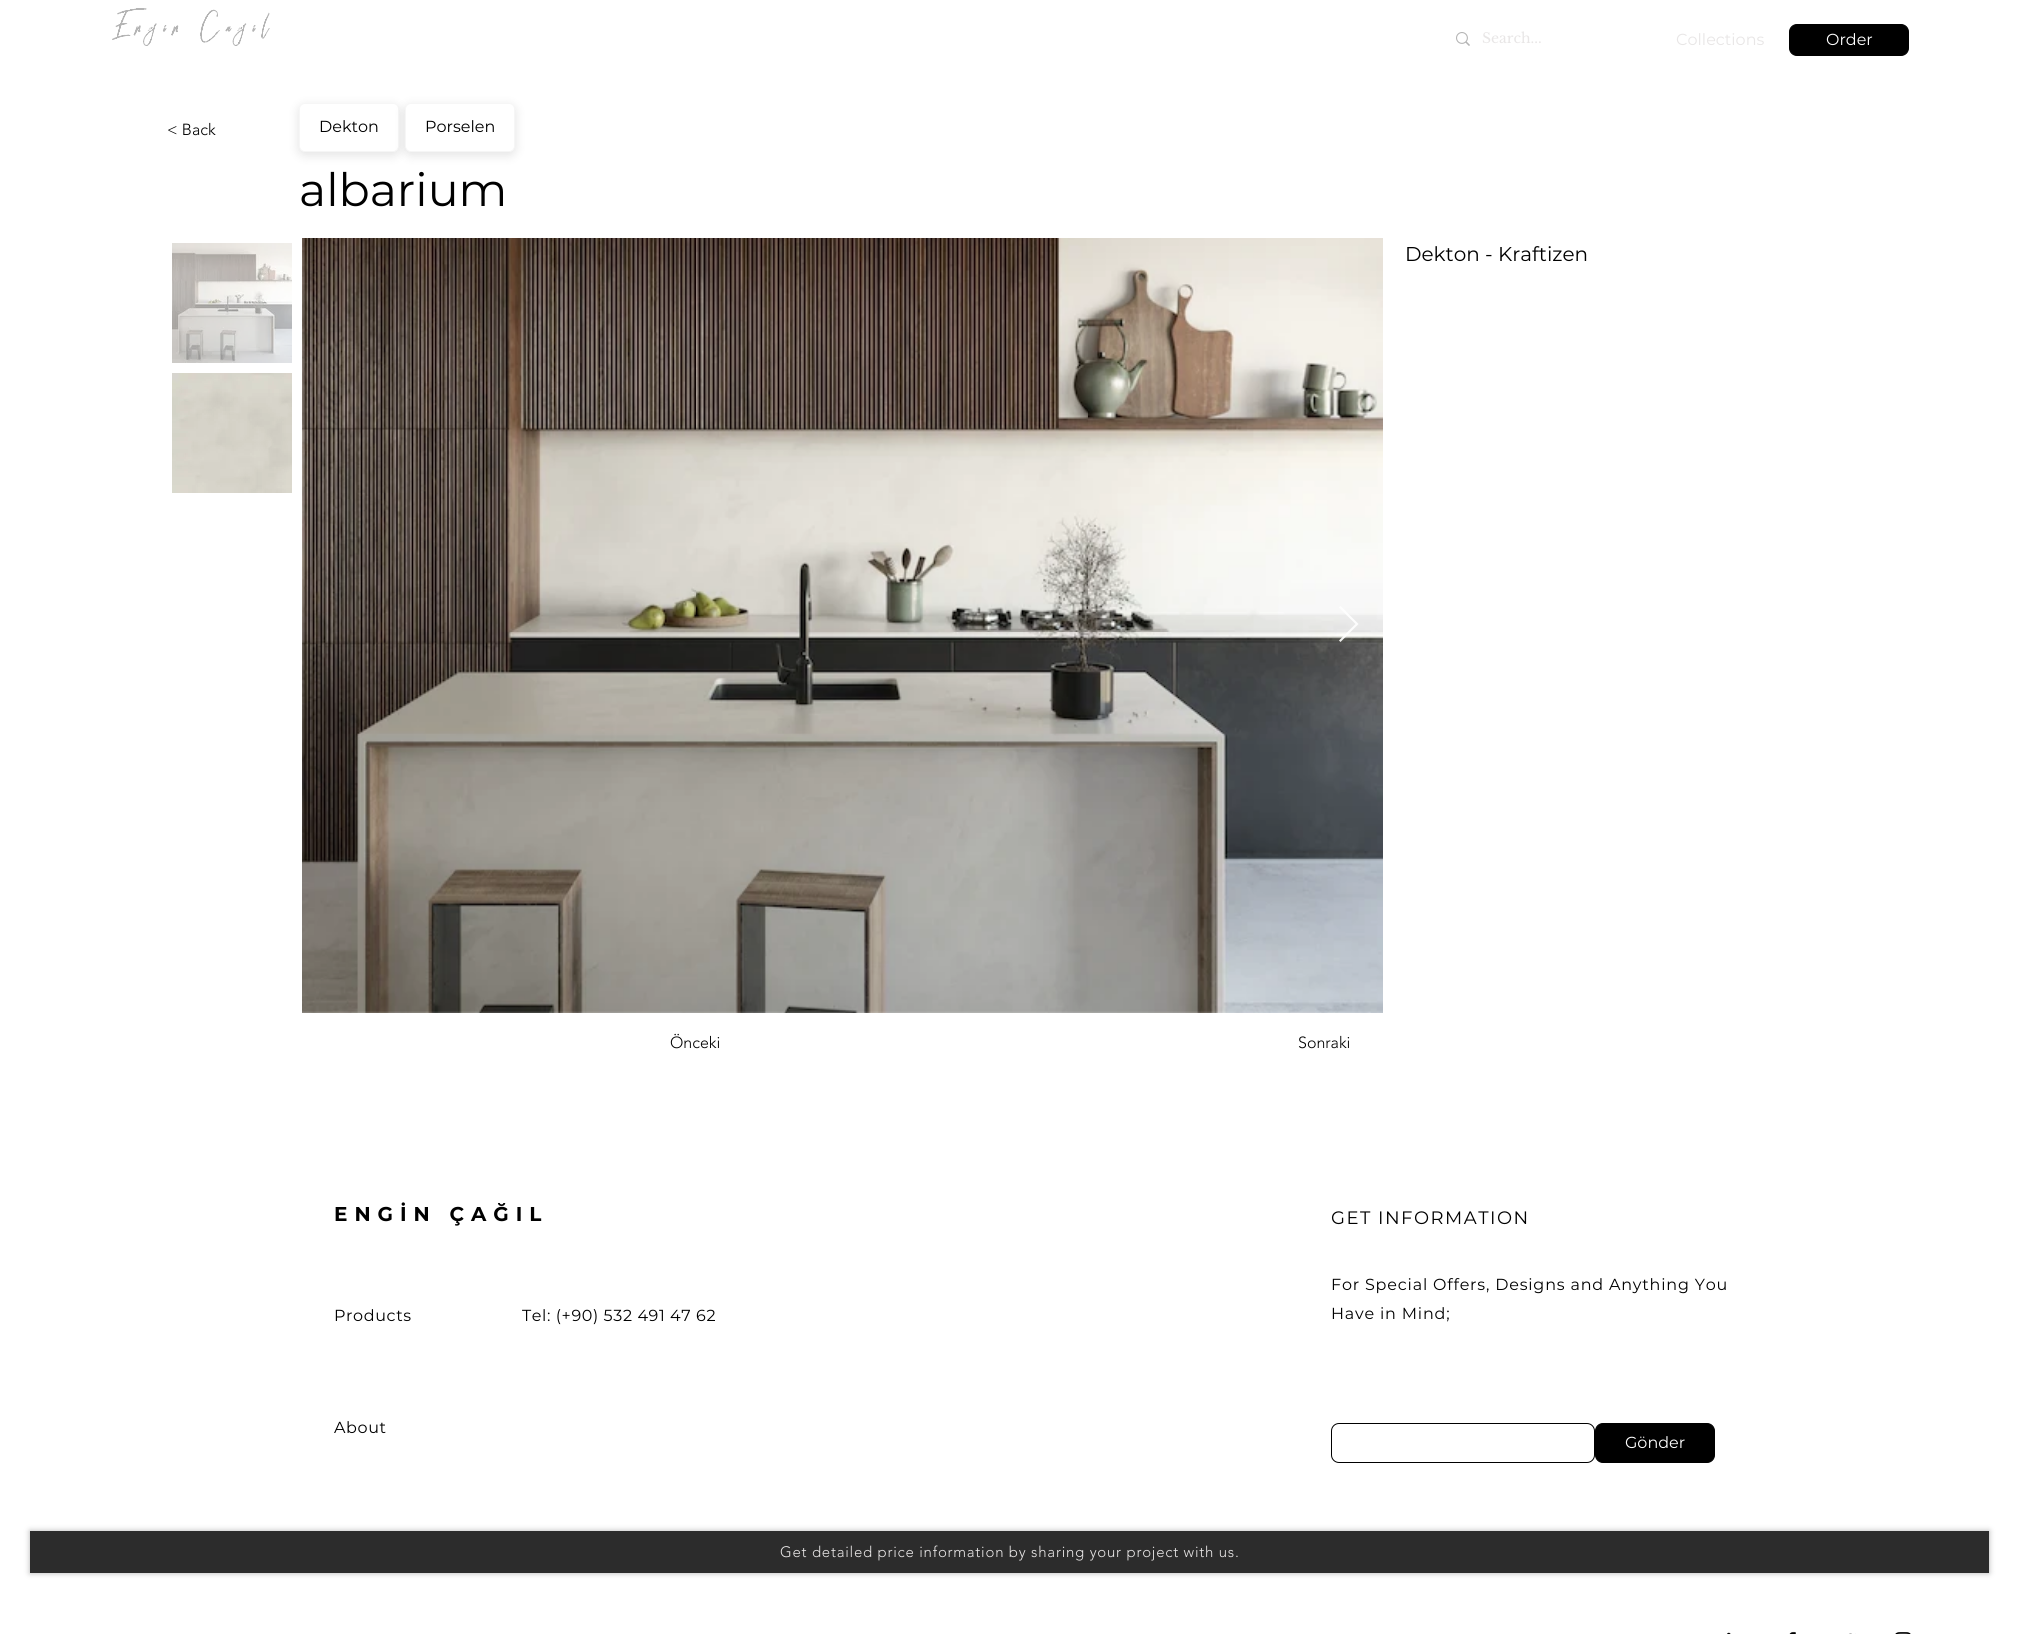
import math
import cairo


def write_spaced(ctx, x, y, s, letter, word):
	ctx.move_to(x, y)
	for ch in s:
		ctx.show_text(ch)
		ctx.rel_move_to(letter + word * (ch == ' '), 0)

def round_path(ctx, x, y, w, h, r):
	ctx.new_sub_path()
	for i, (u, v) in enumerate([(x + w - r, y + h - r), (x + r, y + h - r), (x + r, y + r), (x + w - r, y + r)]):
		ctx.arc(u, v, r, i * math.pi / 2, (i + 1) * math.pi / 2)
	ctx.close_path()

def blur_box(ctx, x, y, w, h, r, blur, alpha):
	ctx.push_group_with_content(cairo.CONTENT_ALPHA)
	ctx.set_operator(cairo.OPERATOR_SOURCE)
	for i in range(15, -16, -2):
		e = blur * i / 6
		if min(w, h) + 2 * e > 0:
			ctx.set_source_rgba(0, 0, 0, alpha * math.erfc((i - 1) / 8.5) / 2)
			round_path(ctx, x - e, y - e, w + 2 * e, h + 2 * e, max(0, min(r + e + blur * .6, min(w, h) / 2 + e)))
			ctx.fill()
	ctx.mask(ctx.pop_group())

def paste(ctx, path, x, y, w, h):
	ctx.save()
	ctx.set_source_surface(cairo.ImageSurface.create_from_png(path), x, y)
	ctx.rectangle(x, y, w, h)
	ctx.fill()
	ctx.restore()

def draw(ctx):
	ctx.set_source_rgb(1, 1, 1)
	ctx.paint()
	ctx.select_font_face('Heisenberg', cairo.FONT_SLANT_NORMAL, cairo.FONT_WEIGHT_BOLD)
	ctx.set_font_size(22)
	ctx.set_source_rgb(0.706, 0.706, 0.706)
	write_spaced(ctx, 115, 33, 'Engin Cagil', 7.75, 0)
	paste(ctx, 'media/1.png', 1456, 32, 14, 14)
	ctx.select_font_face('Libre Baskerville')
	ctx.set_font_size(14)
	ctx.set_source_rgb(0.91, 0.902, 0.902)
	ctx.move_to(1482, 43)
	ctx.show_text('Search...')
	ctx.select_font_face('Montserrat')
	ctx.set_font_size(16)
	ctx.move_to(1676, 45)
	ctx.show_text('Collections')
	ctx.set_source_rgb(0, 0, 0)
	round_path(ctx, 1789.5, 24.5, 119, 31, 7.5)
	ctx.fill_preserve()
	ctx.set_line_width(1)
	ctx.stroke()
	ctx.set_source_rgb(1, 1, 1)
	ctx.move_to(1826, 45)
	ctx.show_text('Order')
	ctx.select_font_face('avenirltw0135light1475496 Light')
	ctx.set_source_rgb(0, 0, 0)
	ctx.move_to(167, 135)
	ctx.show_text('< Back')
	ctx.set_source_rgb(0, 0, 0)
	blur_box(ctx, 298, 105, 102, 51, 7, 5, 0.1)
	ctx.set_source_rgb(1, 1, 1)
	round_path(ctx, 299.5, 103.5, 99, 48, 5.5)
	ctx.fill_preserve()
	ctx.set_source_rgb(0.961, 0.961, 0.961)
	ctx.stroke()
	ctx.select_font_face('Montserrat')
	ctx.set_source_rgb(0, 0, 0)
	ctx.move_to(319, 132)
	ctx.show_text('Dekton')
	ctx.set_source_rgb(0, 0, 0)
	blur_box(ctx, 404, 105, 112, 51, 7, 5, 0.1)
	ctx.set_source_rgb(1, 1, 1)
	round_path(ctx, 405.5, 103.5, 109, 48, 5.5)
	ctx.fill_preserve()
	ctx.set_source_rgb(0.961, 0.961, 0.961)
	ctx.stroke()
	ctx.set_source_rgb(0, 0, 0)
	ctx.move_to(425, 132)
	ctx.show_text('Porselen')
	ctx.set_font_size(46)
	ctx.move_to(299, 206)
	ctx.show_text('albarium')
	paste(ctx, 'media/2.png', 172, 243, 120, 120)
	paste(ctx, 'media/3.png', 172, 373, 120, 120)
	paste(ctx, 'media/4.png', 302, 238, 1081, 775)
	ctx.set_source_rgba(1, 1, 1, 0.9)
	ctx.new_path()
	ctx.move_to(1339, 607.5)
	ctx.line_to(1340.5, 606)
	ctx.line_to(1358.5, 624)
	ctx.line_to(1340.5, 642)
	ctx.line_to(1339, 640.5)
	ctx.line_to(1355.5, 624)
	ctx.close_path()
	ctx.fill()
	ctx.set_font_size(20)
	ctx.set_source_rgb(0, 0, 0)
	ctx.move_to(1405, 261)
	ctx.show_text('Dekton - Kraftizen')
	ctx.select_font_face('avenirltw0135light1475496 Light')
	ctx.set_font_size(16)
	ctx.move_to(670, 1048)
	ctx.show_text('Önceki')
	ctx.move_to(1298, 1048)
	ctx.show_text('Sonraki')
	ctx.select_font_face('Montserrat', cairo.FONT_SLANT_NORMAL, cairo.FONT_WEIGHT_BOLD)
	ctx.set_font_size(20)
	write_spaced(ctx, 334, 1221, 'ENGİN ÇAĞIL', 7, 0)
	ctx.select_font_face('Montserrat')
	ctx.set_font_size(16)
	for x, y, s in [
		(334, 1321, 'Products'),
		(522, 1321, 'Tel: (+90) 532 491 47 62'),
		(334, 1433, 'About'),
	]:
		write_spaced(ctx, x, y, s, 0.6, 0)
	ctx.set_font_size(18)
	write_spaced(ctx, 1331, 1224, 'GET INFORMATION', 1.5, 0)
	ctx.set_font_size(16)
	write_spaced(ctx, 1331, 1290, 'For Special Offers, Designs and Anything You', 0.8, 0)
	write_spaced(ctx, 1331, 1319, 'Have in Mind;', 0.8, 0)
	round_path(ctx, 1331.5, 1423.5, 263, 39, 7.5)
	ctx.stroke()
	round_path(ctx, 1595.5, 1423.5, 119, 39, 7.5)
	ctx.fill_preserve()
	ctx.stroke()
	ctx.set_source_rgb(1, 1, 1)
	ctx.move_to(1625, 1448)
	ctx.show_text('Gönder')
	ctx.set_source_rgb(0.706, 0.706, 0.706)
	blur_box(ctx, 30, 1531, 1959, 42, 0, 3, 1)
	ctx.set_source_rgb(0.173, 0.173, 0.173)
	ctx.rectangle(30, 1531, 1959, 42)
	ctx.fill()
	ctx.select_font_face('avenirltw0135light1475496 Light')
	ctx.set_font_size(15)
	ctx.set_source_rgb(0.91, 0.902, 0.902)
	write_spaced(ctx, 780, 1557, 'Get detailed price information by sharing your project with us.', 0.75, 0)
	paste(ctx, 'media/5.png', 1727, 1632, 4, 2)
	paste(ctx, 'media/6.png', 1789, 1631, 7, 3)
	paste(ctx, 'media/7.png', 1849, 1633, 7, 1)
	paste(ctx, 'media/8.png', 1895, 1632, 16, 2)


surface = cairo.ImageSurface(cairo.FORMAT_RGB24, 2018, 1634)
ctx = cairo.Context(surface)
options = cairo.FontOptions()
options.set_hint_metrics(cairo.HINT_METRICS_OFF)
options.set_hint_style(cairo.HINT_STYLE_NONE)
ctx.set_font_options(options)
ctx.set_miter_limit(4)
draw(ctx)
surface.write_to_png('image.png')
